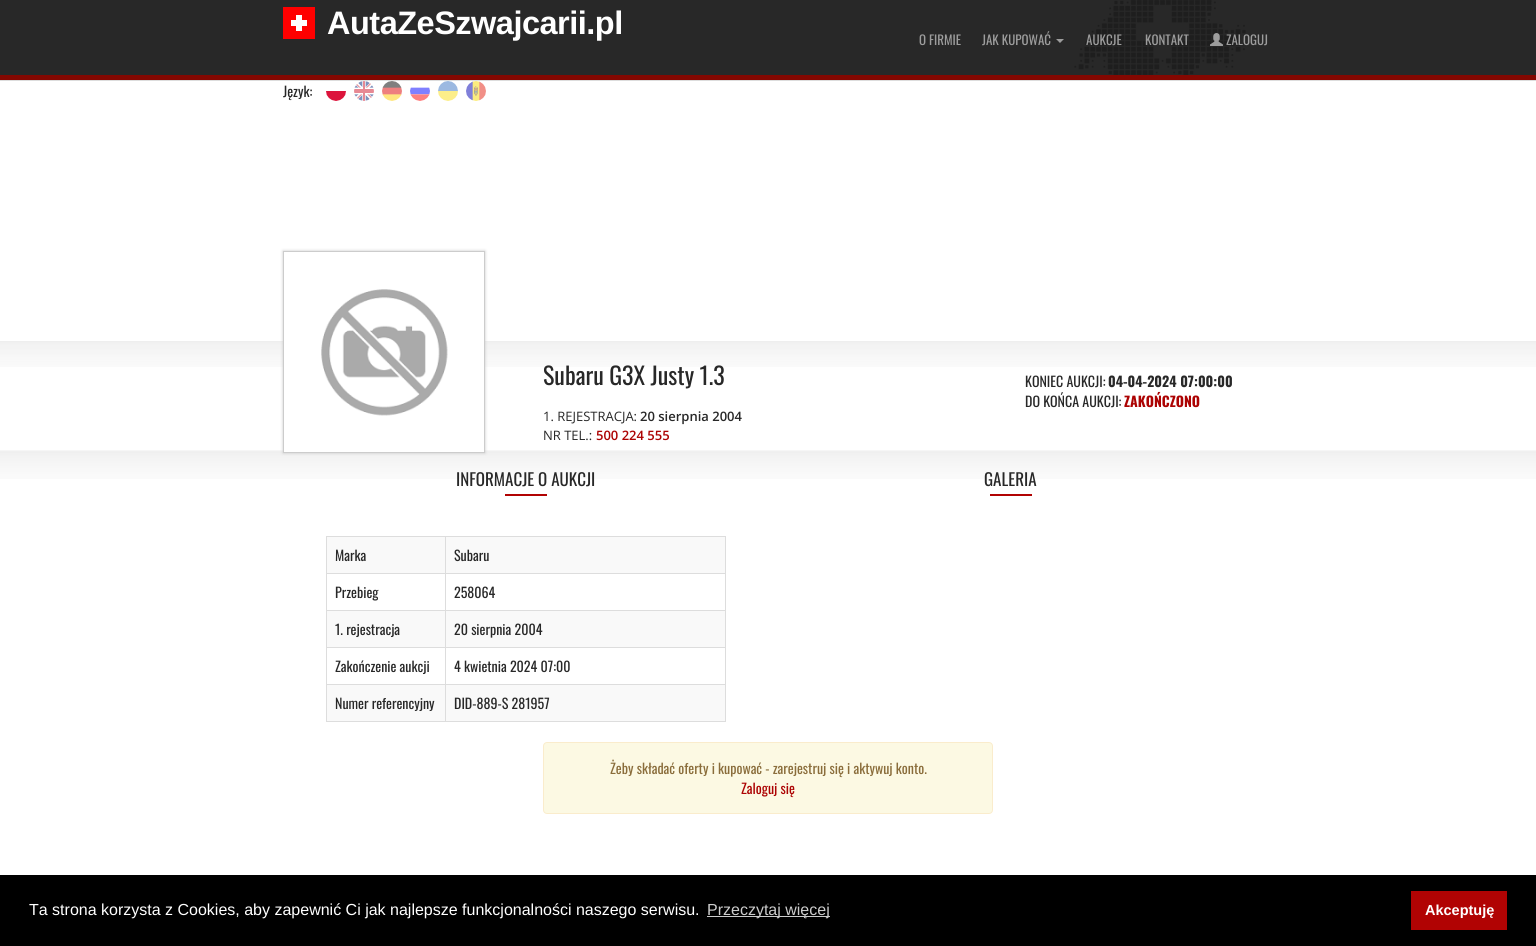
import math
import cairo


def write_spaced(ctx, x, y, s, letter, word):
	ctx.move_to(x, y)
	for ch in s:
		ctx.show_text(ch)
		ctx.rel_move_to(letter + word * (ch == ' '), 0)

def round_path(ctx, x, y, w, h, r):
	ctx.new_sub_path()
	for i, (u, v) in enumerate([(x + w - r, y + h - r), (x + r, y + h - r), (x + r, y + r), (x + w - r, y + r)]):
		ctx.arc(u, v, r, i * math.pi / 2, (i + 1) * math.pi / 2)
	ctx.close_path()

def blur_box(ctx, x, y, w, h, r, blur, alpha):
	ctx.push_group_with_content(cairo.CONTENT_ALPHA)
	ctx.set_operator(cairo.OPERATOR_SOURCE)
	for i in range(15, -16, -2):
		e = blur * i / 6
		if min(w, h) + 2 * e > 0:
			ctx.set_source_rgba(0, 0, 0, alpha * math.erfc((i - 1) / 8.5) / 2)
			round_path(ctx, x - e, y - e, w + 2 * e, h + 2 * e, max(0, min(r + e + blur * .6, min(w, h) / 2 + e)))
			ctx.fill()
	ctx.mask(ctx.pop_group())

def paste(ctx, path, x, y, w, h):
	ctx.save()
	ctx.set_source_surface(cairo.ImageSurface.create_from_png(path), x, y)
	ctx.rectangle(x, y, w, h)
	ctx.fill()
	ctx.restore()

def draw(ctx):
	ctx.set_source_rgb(1, 1, 1)
	ctx.paint()
	paste(ctx, 'media/1.png', 0, 0, 1536, 81)
	paste(ctx, 'media/2.png', 1074, 0, 172, 75)
	ctx.set_source_rgb(1, 0, 0)
	ctx.rectangle(283, 7, 32, 32)
	ctx.fill()
	ctx.set_source_rgb(1, 1, 1)
	ctx.rectangle(291, 20, 16, 6)
	ctx.rectangle(296, 15, 6, 16)
	ctx.fill()
	ctx.select_font_face('Liberation Sans', cairo.FONT_SLANT_NORMAL, cairo.FONT_WEIGHT_BOLD)
	ctx.set_font_size(32.5)
	write_spaced(ctx, 327, 34, 'AutaZeSzwajcarii.pl', -0.5, 0)
	ctx.select_font_face('Oswald')
	ctx.set_font_size(13)
	ctx.set_source_rgb(0.616, 0.616, 0.616)
	ctx.move_to(919, 45)
	ctx.show_text('O FIRMIE')
	ctx.move_to(982, 45)
	ctx.show_text('JAK KUPOWAĆ')
	ctx.new_path()
	ctx.move_to(1056, 39)
	ctx.line_to(1064, 39)
	ctx.line_to(1060, 43)
	ctx.close_path()
	ctx.fill()
	ctx.move_to(1086, 45)
	ctx.show_text('AUKCJE')
	ctx.move_to(1145, 45)
	ctx.show_text('KONTAKT')
	paste(ctx, 'media/3.png', 1210, 33, 13, 13)
	ctx.move_to(1226, 45)
	ctx.show_text('ZALOGUJ')
	ctx.set_font_size(14)
	ctx.set_source_rgb(0.157, 0.157, 0.157)
	ctx.move_to(283, 97)
	ctx.show_text('Język:')
	paste(ctx, 'media/4.png', 326, 91, 20, 10)
	paste(ctx, 'media/5.png', 354, 81, 20, 20)
	paste(ctx, 'media/6.png', 382, 81, 20, 20)
	paste(ctx, 'media/7.png', 410, 87, 20, 14)
	paste(ctx, 'media/8.png', 438, 81, 20, 20)
	paste(ctx, 'media/9.png', 466, 81, 20, 20)
	paste(ctx, 'media/10.png', 0, 341, 1536, 26)
	paste(ctx, 'media/12.png', 0, 450, 1536, 29)
	ctx.save()
	ctx.set_fill_rule(cairo.FILL_RULE_EVEN_ODD)
	ctx.new_path()
	ctx.move_to(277, 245)
	ctx.line_to(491, 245)
	ctx.line_to(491, 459)
	ctx.line_to(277, 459)
	ctx.close_path()
	ctx.move_to(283, 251)
	ctx.line_to(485, 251)
	ctx.line_to(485, 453)
	ctx.line_to(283, 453)
	ctx.close_path()
	ctx.clip()
	ctx.set_source_rgb(0.78, 0.78, 0.78)
	blur_box(ctx, 283, 251, 202, 202, 0, 1.5, 1)
	ctx.restore()
	ctx.rectangle(283.5, 251.5, 201, 201)
	ctx.set_source_rgb(0.8, 0.8, 0.8)
	ctx.set_line_width(1)
	ctx.stroke()
	paste(ctx, 'media/11.png', 284, 289, 200, 163)
	ctx.set_font_size(24)
	ctx.set_source_rgb(0.157, 0.157, 0.157)
	ctx.move_to(543, 385)
	ctx.show_text('Subaru G3X Justy 1.3')
	ctx.select_font_face('Open Sans')
	ctx.set_font_size(13)
	ctx.move_to(543, 421)
	ctx.show_text('1. REJESTRACJA:')
	ctx.select_font_face('Open Sans SemiBold')
	ctx.move_to(640, 421)
	ctx.show_text('20 sierpnia 2004')
	ctx.select_font_face('Open Sans')
	ctx.move_to(543, 440)
	ctx.show_text('NR TEL.:')
	ctx.select_font_face('Open Sans SemiBold')
	ctx.set_source_rgb(0.675, 0.012, 0.012)
	ctx.move_to(596, 440)
	ctx.show_text('500 224 555')
	ctx.select_font_face('Oswald')
	ctx.set_font_size(14)
	ctx.set_source_rgb(0.157, 0.157, 0.157)
	ctx.move_to(1025, 387)
	ctx.show_text('KONIEC AUKCJI:')
	ctx.select_font_face('Oswald', cairo.FONT_SLANT_NORMAL, cairo.FONT_WEIGHT_BOLD)
	ctx.move_to(1108, 387)
	ctx.show_text('04-04-2024 07:00:00')
	ctx.select_font_face('Oswald')
	ctx.move_to(1025, 407)
	ctx.show_text('DO KOŃCA AUKCJI:')
	ctx.select_font_face('Oswald', cairo.FONT_SLANT_NORMAL, cairo.FONT_WEIGHT_BOLD)
	ctx.set_source_rgb(0.675, 0.012, 0.012)
	ctx.move_to(1124, 407)
	ctx.show_text('ZAKOŃCZONO')
	ctx.select_font_face('Oswald')
	ctx.set_font_size(17)
	ctx.set_source_rgb(0.157, 0.157, 0.157)
	ctx.move_to(456, 486)
	ctx.show_text('INFORMACJE O AUKCJI')
	ctx.set_source_rgb(0.694, 0.012, 0.012)
	ctx.rectangle(505, 494, 42, 2)
	ctx.fill()
	ctx.set_source_rgb(0.867, 0.867, 0.867)
	ctx.rectangle(326, 536, 400, 1)
	ctx.rectangle(725, 536, 1, 186)
	ctx.rectangle(326, 721, 400, 1)
	ctx.rectangle(326, 536, 1, 186)
	ctx.fill()
	ctx.set_source_rgb(0.976, 0.976, 0.976)
	ctx.rectangle(327, 537, 398, 36)
	ctx.fill()
	ctx.set_font_size(14)
	ctx.set_source_rgb(0.157, 0.157, 0.157)
	ctx.move_to(335, 561)
	ctx.show_text('Marka')
	ctx.set_source_rgb(0.867, 0.867, 0.867)
	ctx.rectangle(445, 573, 281, 1)
	ctx.rectangle(445, 610, 281, 1)
	ctx.fill()
	ctx.set_source_rgb(0.976, 0.976, 0.976)
	ctx.rectangle(327, 611, 398, 36)
	ctx.fill()
	ctx.set_source_rgb(0.867, 0.867, 0.867)
	ctx.rectangle(445, 647, 281, 1)
	ctx.rectangle(445, 684, 281, 1)
	ctx.fill()
	ctx.set_source_rgb(0.976, 0.976, 0.976)
	ctx.rectangle(327, 685, 398, 36)
	ctx.fill()
	ctx.set_source_rgb(0.867, 0.867, 0.867)
	ctx.rectangle(445, 684, 1, 38)
	ctx.rectangle(326, 684, 120, 1)
	ctx.rectangle(445, 647, 1, 38)
	ctx.rectangle(326, 647, 120, 1)
	ctx.rectangle(445, 610, 1, 38)
	ctx.rectangle(326, 610, 120, 1)
	ctx.rectangle(445, 573, 1, 38)
	ctx.rectangle(326, 573, 120, 1)
	ctx.rectangle(445, 536, 1, 38)
	ctx.fill()
	ctx.set_source_rgb(0.157, 0.157, 0.157)
	for x, y, s in [
		(454, 561, 'Subaru'),
		(335, 598, 'Przebieg'),
		(454, 598, '258064'),
		(335, 635, '1. rejestracja'),
		(454, 635, '20 sierpnia 2004'),
		(335, 672, 'Zakończenie aukcji'),
		(454, 672, '4 kwietnia 2024 07:00'),
		(335, 709, 'Numer referencyjny'),
		(454, 709, 'DID-889-S 281957'),
	]:
		ctx.move_to(x, y)
		ctx.show_text(s)
	ctx.set_font_size(17)
	ctx.move_to(984, 486)
	ctx.show_text('GALERIA')
	ctx.set_source_rgb(0.694, 0.012, 0.012)
	ctx.rectangle(990, 494, 42, 2)
	ctx.fill()
	ctx.set_source_rgb(0.988, 0.973, 0.89)
	round_path(ctx, 543.5, 742.5, 449, 71, 3.5)
	ctx.fill_preserve()
	ctx.set_source_rgb(0.98, 0.922, 0.8)
	ctx.stroke()
	ctx.set_font_size(14)
	ctx.set_source_rgb(0.541, 0.427, 0.231)
	ctx.move_to(610, 774)
	ctx.show_text('Żeby składać oferty i kupować - zarejestruj się i aktywuj konto.')
	ctx.set_source_rgb(0.675, 0.012, 0.012)
	ctx.move_to(741, 794)
	ctx.show_text('Zaloguj się')
	ctx.set_source_rgb(0, 0, 0)
	ctx.rectangle(0, 875, 1536, 71)
	ctx.fill()
	ctx.select_font_face('Liberation Sans')
	ctx.set_font_size(16)
	ctx.set_source_rgb(1, 1, 1)
	ctx.move_to(29, 915)
	ctx.show_text('Ta strona korzysta z Cookies, aby zapewnić Ci jak najlepsze funkcjonalności naszego serwisu.')
	ctx.set_source_rgb(0.8, 0.8, 0.8)
	ctx.rectangle(707, 916, 123, 1)
	ctx.fill()
	ctx.move_to(707, 915)
	ctx.show_text('Przeczytaj więcej')
	ctx.set_source_rgb(0.694, 0.012, 0.012)
	ctx.rectangle(1411, 891, 96, 39)
	ctx.fill()
	ctx.select_font_face('Liberation Sans', cairo.FONT_SLANT_NORMAL, cairo.FONT_WEIGHT_BOLD)
	ctx.set_font_size(14.5)
	ctx.set_source_rgb(1, 1, 1)
	ctx.move_to(1425, 915)
	ctx.show_text('Akceptuję')


surface = cairo.ImageSurface(cairo.FORMAT_RGB24, 1536, 946)
ctx = cairo.Context(surface)
options = cairo.FontOptions()
options.set_hint_metrics(cairo.HINT_METRICS_OFF)
options.set_hint_style(cairo.HINT_STYLE_NONE)
ctx.set_font_options(options)
ctx.set_miter_limit(4)
draw(ctx)
surface.write_to_png('image.png')
